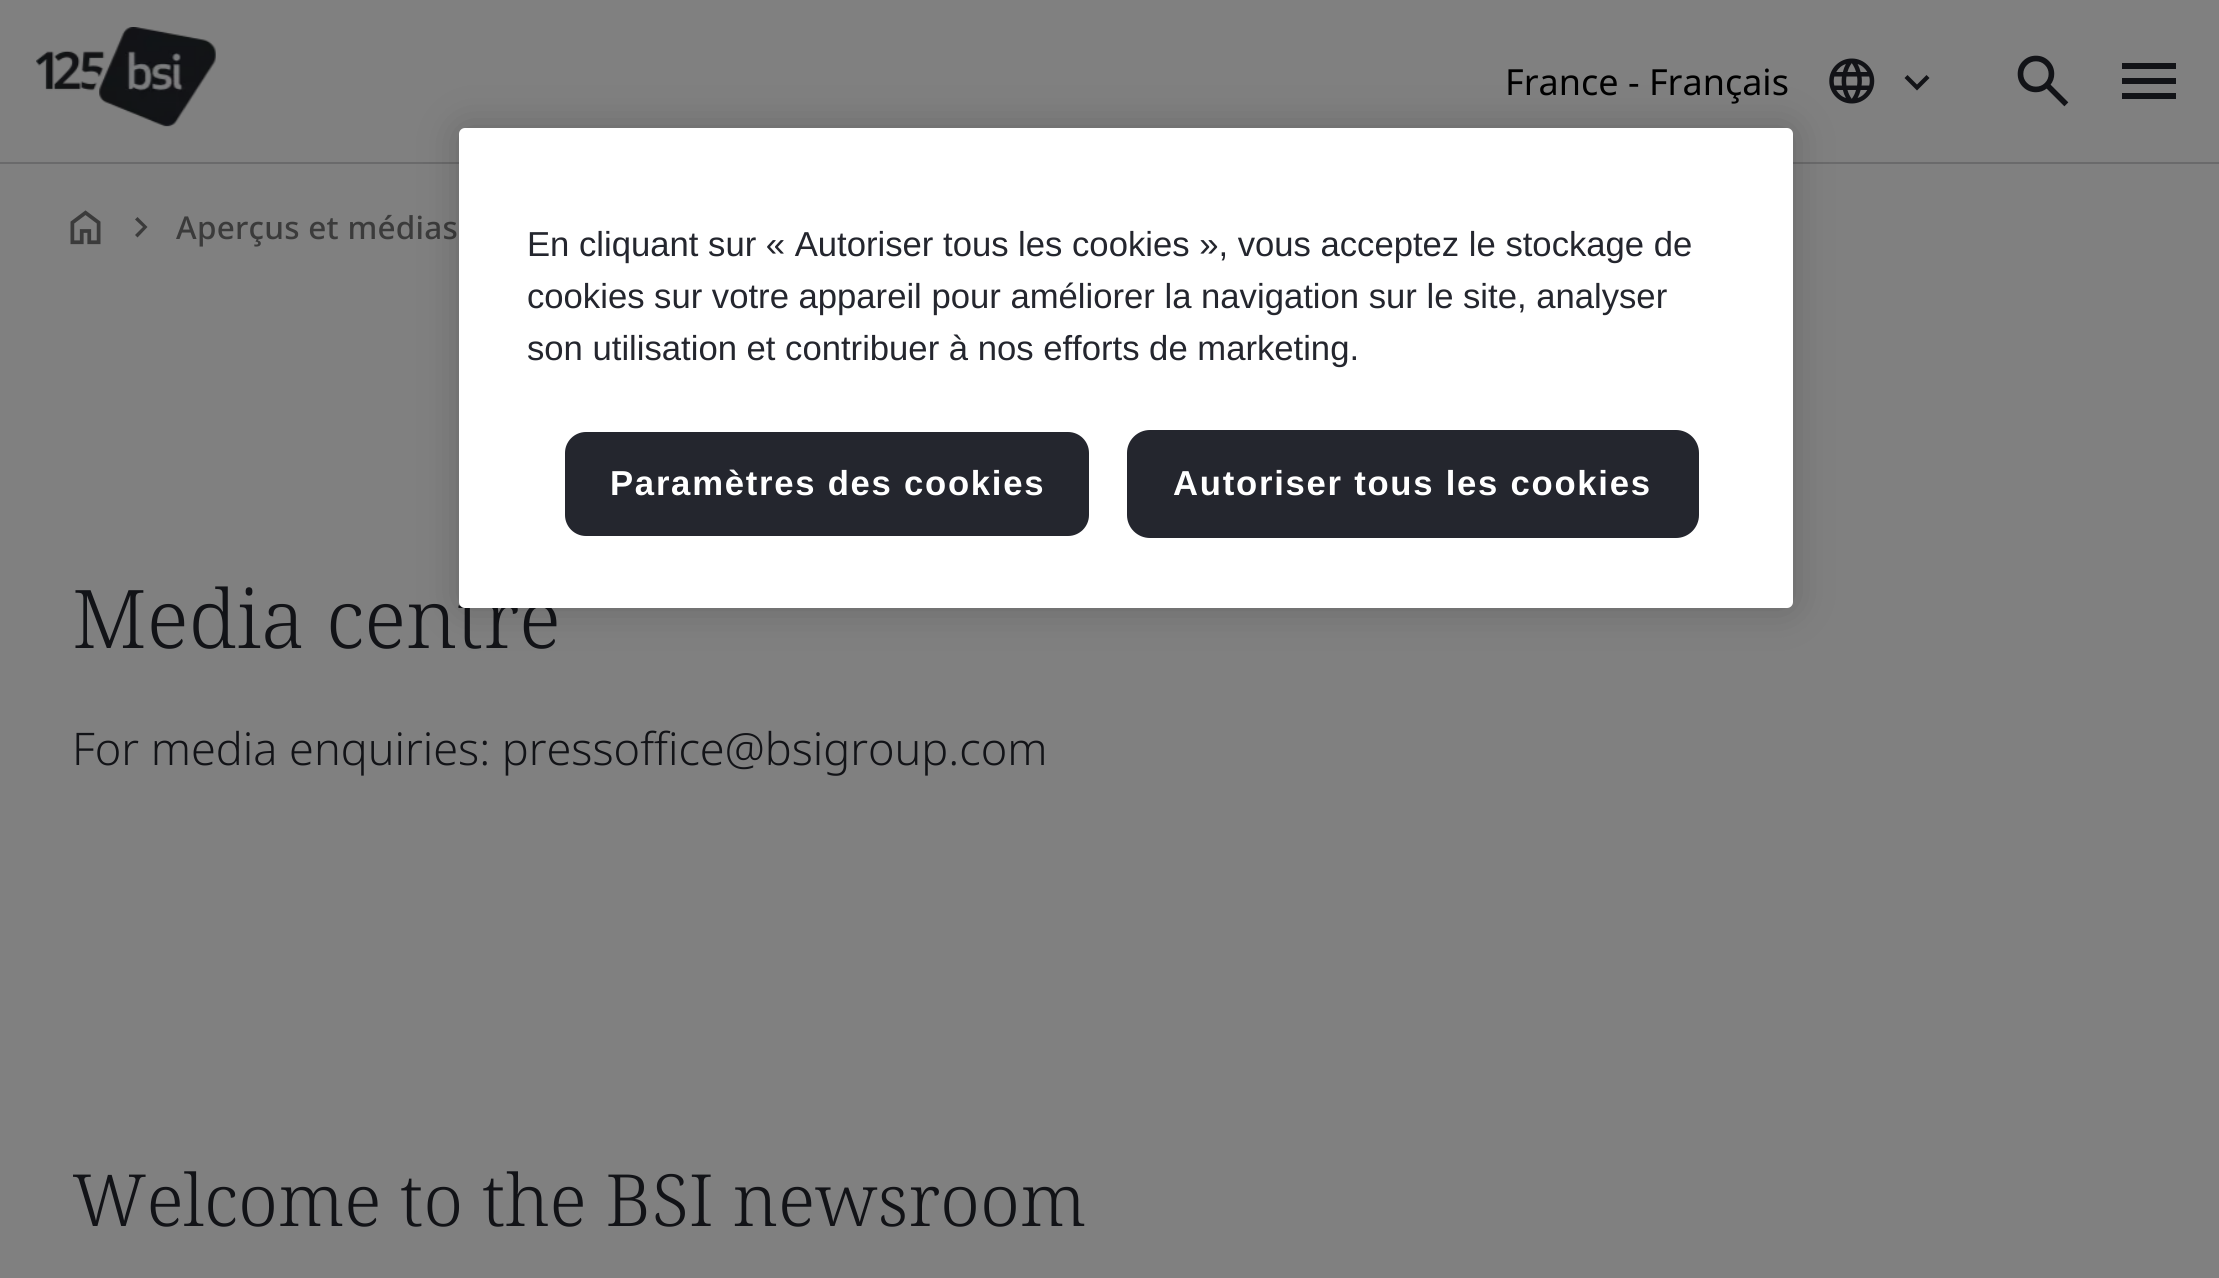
import math
import cairo


def write_spaced(ctx, x, y, s, letter, word):
	ctx.move_to(x, y)
	for ch in s:
		ctx.show_text(ch)
		ctx.rel_move_to(letter + word * (ch == ' '), 0)

def round_path(ctx, x, y, w, h, r):
	ctx.new_sub_path()
	for i, (u, v) in enumerate([(x + w - r, y + h - r), (x + r, y + h - r), (x + r, y + r), (x + w - r, y + r)]):
		ctx.arc(u, v, r, i * math.pi / 2, (i + 1) * math.pi / 2)
	ctx.close_path()

def blur_box(ctx, x, y, w, h, r, blur, alpha):
	ctx.push_group_with_content(cairo.CONTENT_ALPHA)
	ctx.set_operator(cairo.OPERATOR_SOURCE)
	for i in range(15, -16, -2):
		e = blur * i / 6
		if min(w, h) + 2 * e > 0:
			ctx.set_source_rgba(0, 0, 0, alpha * math.erfc((i - 1) / 8.5) / 2)
			round_path(ctx, x - e, y - e, w + 2 * e, h + 2 * e, max(0, min(r + e + blur * .6, min(w, h) / 2 + e)))
			ctx.fill()
	ctx.mask(ctx.pop_group())

def paste(ctx, path, x, y, w, h):
	ctx.save()
	ctx.set_source_surface(cairo.ImageSurface.create_from_png(path), x, y)
	ctx.rectangle(x, y, w, h)
	ctx.fill()
	ctx.restore()

def draw(ctx):
	ctx.set_source_rgb(0.502, 0.502, 0.502)
	ctx.paint()
	ctx.set_source_rgb(0.416, 0.416, 0.42)
	ctx.rectangle(0, 162, 2219, 2)
	ctx.fill()
	paste(ctx, 'media/1.png', 36, 27, 180, 100)
	ctx.select_font_face('Noto Sans')
	ctx.set_font_size(36)
	ctx.set_source_rgb(0, 0, 0)
	ctx.move_to(1505, 95)
	ctx.show_text('France - Français')
	paste(ctx, 'media/2.png', 1829, 58, 46, 46)
	ctx.set_source_rgb(0.071, 0.075, 0.09)
	ctx.new_path()
	ctx.move_to(1917, 90.5)
	ctx.line_to(1904.5, 78)
	ctx.line_to(1907.5, 75)
	ctx.line_to(1917, 84.5)
	ctx.line_to(1926.5, 75)
	ctx.line_to(1929.5, 78)
	ctx.close_path()
	ctx.fill()
	paste(ctx, 'media/3.png', 2017, 55, 52, 52)
	ctx.new_path()
	ctx.move_to(2122, 99)
	ctx.line_to(2122, 93)
	ctx.line_to(2176, 93)
	ctx.line_to(2176, 99)
	ctx.close_path()
	ctx.move_to(2122, 84)
	ctx.line_to(2122, 78)
	ctx.line_to(2176, 78)
	ctx.line_to(2176, 84)
	ctx.close_path()
	ctx.move_to(2122, 69)
	ctx.line_to(2122, 63)
	ctx.line_to(2176, 63)
	ctx.line_to(2176, 69)
	ctx.close_path()
	ctx.fill()
	paste(ctx, 'media/4.png', 70, 210, 31, 35)
	ctx.set_source_rgb(0.231, 0.231, 0.231)
	ctx.new_path()
	ctx.move_to(143, 227)
	ctx.line_to(135, 219.5)
	ctx.line_to(137.5, 217)
	ctx.line_to(147.5, 227)
	ctx.line_to(137.5, 237.5)
	ctx.line_to(135, 235)
	ctx.close_path()
	ctx.fill()
	ctx.select_font_face('Noto Sans Medium')
	ctx.set_font_size(31.5)
	write_spaced(ctx, 176, 239, 'Aperçus et médias', 0.25, 0)
	ctx.select_font_face('Noto Serif Light')
	ctx.set_font_size(81)
	ctx.set_source_rgb(0.071, 0.075, 0.09)
	ctx.move_to(72, 648)
	ctx.show_text('Media centre')
	ctx.select_font_face('Noto Sans Light')
	ctx.set_font_size(45)
	ctx.move_to(72, 765)
	ctx.show_text('For media enquiries: pressoffice@bsigroup.com')
	ctx.select_font_face('Noto Serif Light')
	ctx.set_font_size(72)
	ctx.move_to(72, 1226)
	ctx.show_text('Welcome to the BSI newsroom')
	ctx.set_source_rgb(0, 0, 0)
	blur_box(ctx, 459, 128, 1334, 480, 6, 20, 0.2)
	ctx.set_source_rgb(1, 1, 1)
	round_path(ctx, 459, 128, 1334, 480, 6)
	ctx.fill()
	ctx.select_font_face('Liberation Sans')
	ctx.set_font_size(34.65)
	ctx.set_source_rgb(0.141, 0.149, 0.18)
	for x, y, s in [
		(527, 256, 'En cliquant sur « Autoriser tous les cookies », vous acceptez le stockage de'),
		(527, 308, 'cookies sur votre appareil pour améliorer la navigation sur le site, analyser'),
		(527, 360, 'son utilisation et contribuer à nos efforts de marketing.'),
	]:
		ctx.move_to(x, y)
		ctx.show_text(s)
	round_path(ctx, 564, 431, 526, 106, 22)
	ctx.fill_preserve()
	ctx.set_source_rgb(1, 1, 1)
	ctx.stroke()
	ctx.select_font_face('Liberation Sans', cairo.FONT_SLANT_NORMAL, cairo.FONT_WEIGHT_BOLD)
	write_spaced(ctx, 610, 495, 'Paramètres des cookies', 1.75, 0)
	ctx.set_source_rgb(0.141, 0.149, 0.18)
	round_path(ctx, 1128, 431, 570, 106, 22)
	ctx.fill_preserve()
	ctx.stroke()
	ctx.set_source_rgb(1, 1, 1)
	write_spaced(ctx, 1173, 495, 'Autoriser tous les cookies', 1.75, 0)


surface = cairo.ImageSurface(cairo.FORMAT_RGB24, 2219, 1278)
ctx = cairo.Context(surface)
options = cairo.FontOptions()
options.set_hint_metrics(cairo.HINT_METRICS_OFF)
options.set_hint_style(cairo.HINT_STYLE_NONE)
ctx.set_font_options(options)
ctx.set_miter_limit(4)
draw(ctx)
surface.write_to_png('image.png')
